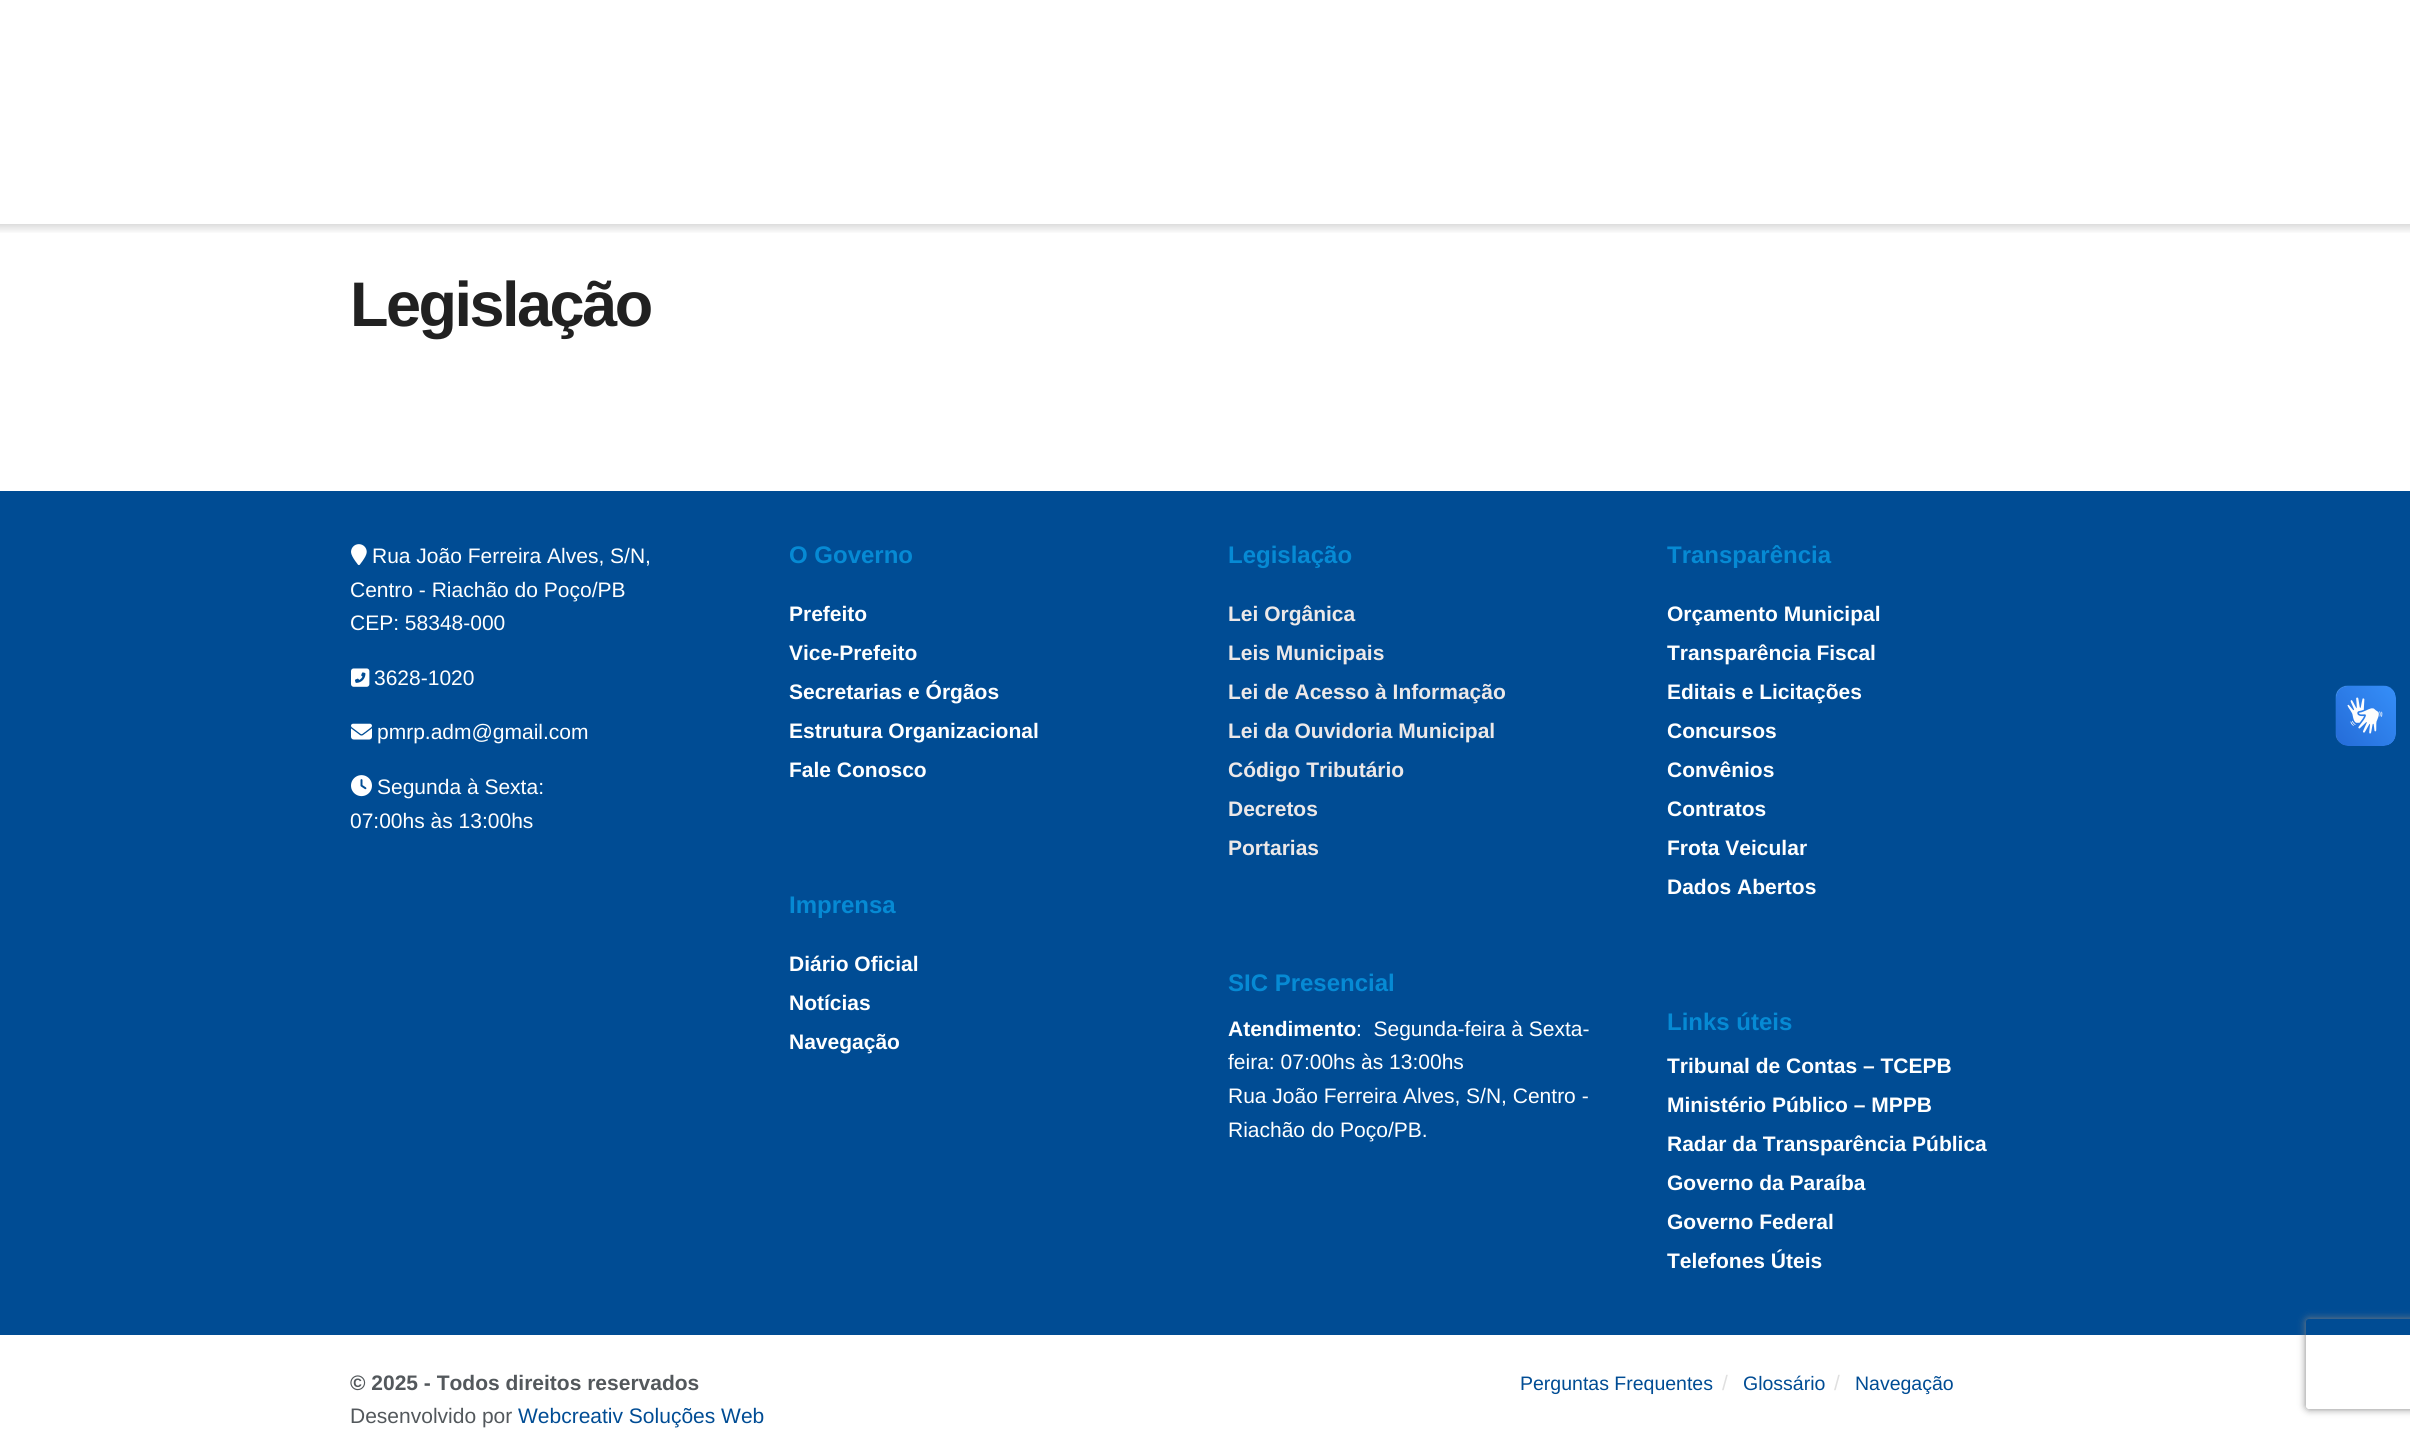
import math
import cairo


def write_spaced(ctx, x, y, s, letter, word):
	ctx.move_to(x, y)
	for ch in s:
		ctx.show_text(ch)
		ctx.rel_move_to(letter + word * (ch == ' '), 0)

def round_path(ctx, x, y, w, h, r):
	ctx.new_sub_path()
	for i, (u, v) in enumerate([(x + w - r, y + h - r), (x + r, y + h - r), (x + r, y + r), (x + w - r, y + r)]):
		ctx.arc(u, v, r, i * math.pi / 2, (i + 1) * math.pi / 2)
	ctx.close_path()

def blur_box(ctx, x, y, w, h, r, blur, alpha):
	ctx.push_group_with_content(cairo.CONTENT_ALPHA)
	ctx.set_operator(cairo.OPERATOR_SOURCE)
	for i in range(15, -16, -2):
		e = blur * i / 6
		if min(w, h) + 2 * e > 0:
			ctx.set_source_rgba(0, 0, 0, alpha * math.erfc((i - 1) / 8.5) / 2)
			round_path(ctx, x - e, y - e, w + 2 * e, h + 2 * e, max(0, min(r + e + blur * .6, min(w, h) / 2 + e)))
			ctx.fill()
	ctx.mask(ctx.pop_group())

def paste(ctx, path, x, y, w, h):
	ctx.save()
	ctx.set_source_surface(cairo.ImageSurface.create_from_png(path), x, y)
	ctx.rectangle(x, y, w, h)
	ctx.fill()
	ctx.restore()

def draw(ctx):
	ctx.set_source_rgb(1, 1, 1)
	ctx.paint()
	gradient = cairo.LinearGradient(1205, 223, 1205, 234)
	gradient.add_color_stop_rgba(0, 0.851, 0.851, 0.851, 1)
	gradient.add_color_stop_rgba(1, 1, 1, 1, 1)
	ctx.set_source(gradient)
	ctx.rectangle(0, 224, 2410, 9)
	ctx.fill()
	ctx.select_font_face('Liberation Sans', cairo.FONT_SLANT_NORMAL, cairo.FONT_WEIGHT_BOLD)
	ctx.set_font_size(63)
	ctx.set_source_rgb(0.129, 0.129, 0.129)
	write_spaced(ctx, 350, 326, 'Legislação', -2.5, 0)
	ctx.set_source_rgb(0, 0.298, 0.58)
	ctx.rectangle(0, 491, 2410, 844)
	ctx.fill()
	paste(ctx, 'media/1.png', 351, 544, 16, 22)
	ctx.select_font_face('Liberation Sans')
	ctx.set_font_size(21)
	ctx.set_source_rgb(1, 1, 1)
	for x, y, s in [
		(372, 563, 'Rua João Ferreira Alves, S/N,'),
		(350, 597, 'Centro - Riachão do Poço/PB'),
		(350, 630, 'CEP: 58348-000'),
	]:
		ctx.move_to(x, y)
		ctx.show_text(s)
	paste(ctx, 'media/2.png', 351, 668, 19, 19)
	ctx.move_to(374, 685)
	ctx.show_text('3628-1020')
	paste(ctx, 'media/3.png', 351, 723, 21, 17)
	ctx.move_to(377, 739)
	ctx.show_text('pmrp.adm@gmail.com')
	paste(ctx, 'media/4.png', 351, 775, 21, 22)
	ctx.move_to(377, 794)
	ctx.show_text('Segunda à Sexta:')
	ctx.move_to(350, 828)
	ctx.show_text('07:00hs às 13:00hs')
	ctx.select_font_face('Liberation Sans', cairo.FONT_SLANT_NORMAL, cairo.FONT_WEIGHT_BOLD)
	ctx.set_font_size(24)
	ctx.set_source_rgb(0.024, 0.541, 0.831)
	ctx.move_to(789, 563)
	ctx.show_text('O Governo')
	ctx.set_font_size(21)
	ctx.set_source_rgb(1, 1, 1)
	for x, y, s in [
		(789, 621, 'Prefeito'),
		(789, 660, 'Vice-Prefeito'),
		(789, 699, 'Secretarias e Órgãos'),
		(789, 738, 'Estrutura Organizacional'),
		(789, 777, 'Fale Conosco'),
	]:
		ctx.move_to(x, y)
		ctx.show_text(s)
	ctx.set_font_size(24)
	ctx.set_source_rgb(0.024, 0.541, 0.831)
	ctx.move_to(789, 913)
	ctx.show_text('Imprensa')
	ctx.set_font_size(21)
	ctx.set_source_rgb(1, 1, 1)
	for x, y, s in [
		(789, 971, 'Diário Oficial'),
		(789, 1010, 'Notícias'),
		(789, 1049, 'Navegação'),
	]:
		ctx.move_to(x, y)
		ctx.show_text(s)
	ctx.set_font_size(24)
	ctx.set_source_rgb(0.024, 0.541, 0.831)
	ctx.move_to(1228, 563)
	ctx.show_text('Legislação')
	ctx.set_font_size(21)
	ctx.set_source_rgb(0.925, 0.91, 0.91)
	for x, y, s in [
		(1228, 621, 'Lei Orgânica'),
		(1228, 660, 'Leis Municipais'),
		(1228, 699, 'Lei de Acesso à Informação'),
		(1228, 738, 'Lei da Ouvidoria Municipal'),
		(1228, 777, 'Código Tributário'),
		(1228, 816, 'Decretos'),
		(1228, 855, 'Portarias'),
	]:
		ctx.move_to(x, y)
		ctx.show_text(s)
	ctx.set_font_size(24)
	ctx.set_source_rgb(0.024, 0.541, 0.831)
	ctx.move_to(1228, 991)
	ctx.show_text('SIC Presencial')
	ctx.set_font_size(21)
	ctx.set_source_rgb(1, 1, 1)
	ctx.move_to(1228, 1036)
	ctx.show_text('Atendimento')
	ctx.select_font_face('Liberation Sans')
	for x, y, s in [
		(1356, 1036, ':  Segunda-feira à Sexta-'),
		(1228, 1069, 'feira: 07:00hs às 13:00hs'),
		(1228, 1103, 'Rua João Ferreira Alves, S/N, Centro -'),
		(1228, 1137, 'Riachão do Poço/PB.'),
	]:
		ctx.move_to(x, y)
		ctx.show_text(s)
	ctx.select_font_face('Liberation Sans', cairo.FONT_SLANT_NORMAL, cairo.FONT_WEIGHT_BOLD)
	ctx.set_font_size(24)
	ctx.set_source_rgb(0.024, 0.541, 0.831)
	ctx.move_to(1667, 563)
	ctx.show_text('Transparência')
	ctx.set_font_size(21)
	ctx.set_source_rgb(1, 1, 1)
	for x, y, s in [
		(1667, 621, 'Orçamento Municipal'),
		(1667, 660, 'Transparência Fiscal'),
		(1667, 699, 'Editais e Licitações'),
		(1667, 738, 'Concursos'),
		(1667, 777, 'Convênios'),
		(1667, 816, 'Contratos'),
		(1667, 855, 'Frota Veicular'),
		(1667, 894, 'Dados Abertos'),
	]:
		ctx.move_to(x, y)
		ctx.show_text(s)
	ctx.set_font_size(24)
	ctx.set_source_rgb(0.024, 0.541, 0.831)
	ctx.move_to(1667, 1030)
	ctx.show_text('Links úteis')
	ctx.set_font_size(21)
	ctx.set_source_rgb(1, 1, 1)
	for x, y, s in [
		(1667, 1073, 'Tribunal de Contas – TCEPB'),
		(1667, 1112, 'Ministério Público – MPPB'),
		(1667, 1151, 'Radar da Transparência Pública'),
		(1667, 1190, 'Governo da Paraíba'),
		(1667, 1229, 'Governo Federal'),
		(1667, 1268, 'Telefones Úteis'),
	]:
		ctx.move_to(x, y)
		ctx.show_text(s)
	ctx.set_source_rgb(0.325, 0.345, 0.361)
	ctx.move_to(350, 1390)
	ctx.show_text('© 2025 - Todos direitos reservados')
	ctx.select_font_face('Liberation Sans')
	ctx.move_to(350, 1423)
	ctx.show_text('Desenvolvido por')
	ctx.set_source_rgb(0, 0.298, 0.58)
	ctx.move_to(518, 1423)
	ctx.show_text('Webcreativ Soluções Web')
	ctx.set_font_size(19.5)
	ctx.move_to(1520, 1390)
	ctx.show_text('Perguntas Frequentes')
	ctx.set_font_size(21)
	ctx.set_source_rgb(0.878, 0.878, 0.878)
	ctx.move_to(1722, 1390)
	ctx.show_text('/')
	ctx.set_font_size(19.5)
	ctx.set_source_rgb(0, 0.298, 0.58)
	ctx.move_to(1743, 1390)
	ctx.show_text('Glossário')
	ctx.set_font_size(21)
	ctx.set_source_rgb(0.878, 0.878, 0.878)
	ctx.move_to(1834, 1390)
	ctx.show_text('/')
	ctx.set_font_size(19.5)
	ctx.set_source_rgb(0, 0.298, 0.58)
	ctx.move_to(1855, 1390)
	ctx.show_text('Navegação')
	paste(ctx, 'media/5.png', 2335, 685, 61, 61)
	paste(ctx, 'media/6.png', 2336, 686, 60, 60)
	ctx.save()
	ctx.set_fill_rule(cairo.FILL_RULE_EVEN_ODD)
	ctx.new_path()
	ctx.move_to(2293, 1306)
	ctx.line_to(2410, 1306)
	ctx.line_to(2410, 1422)
	ctx.line_to(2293, 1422)
	ctx.close_path()
	ctx.move_to(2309, 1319)
	ctx.line_to(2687, 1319)
	ctx.curve_to(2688.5, 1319, 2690, 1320.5, 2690, 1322)
	ctx.line_to(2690, 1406)
	ctx.curve_to(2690, 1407.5, 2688.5, 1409, 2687, 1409)
	ctx.line_to(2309, 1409)
	ctx.curve_to(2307.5, 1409, 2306, 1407.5, 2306, 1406)
	ctx.line_to(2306, 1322)
	ctx.curve_to(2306, 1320.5, 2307.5, 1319, 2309, 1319)
	ctx.close_path()
	ctx.clip()
	ctx.set_source_rgb(0.502, 0.502, 0.502)
	blur_box(ctx, 2306, 1319, 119, 90, 3, 4, 1)
	ctx.restore()


surface = cairo.ImageSurface(cairo.FORMAT_RGB24, 2410, 1429)
ctx = cairo.Context(surface)
options = cairo.FontOptions()
options.set_hint_metrics(cairo.HINT_METRICS_OFF)
options.set_hint_style(cairo.HINT_STYLE_NONE)
ctx.set_font_options(options)
ctx.set_miter_limit(4)
draw(ctx)
surface.write_to_png('image.png')
